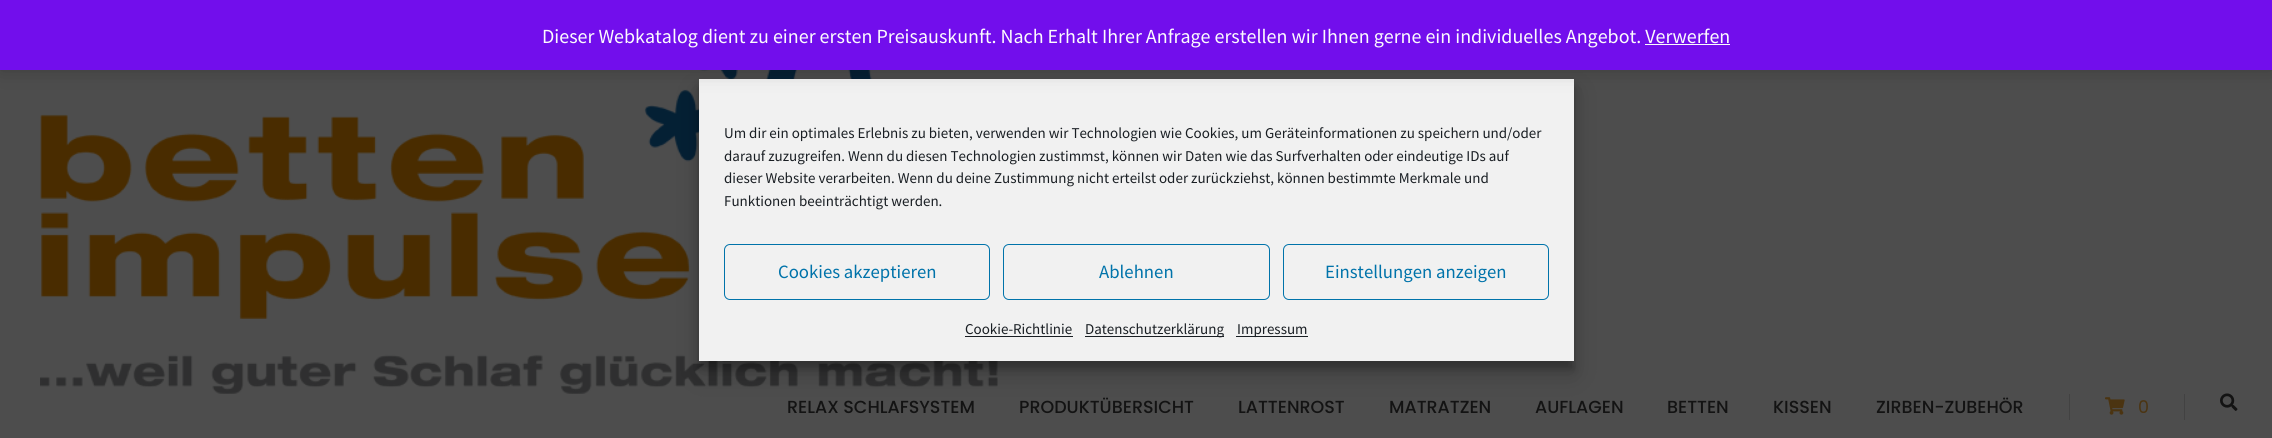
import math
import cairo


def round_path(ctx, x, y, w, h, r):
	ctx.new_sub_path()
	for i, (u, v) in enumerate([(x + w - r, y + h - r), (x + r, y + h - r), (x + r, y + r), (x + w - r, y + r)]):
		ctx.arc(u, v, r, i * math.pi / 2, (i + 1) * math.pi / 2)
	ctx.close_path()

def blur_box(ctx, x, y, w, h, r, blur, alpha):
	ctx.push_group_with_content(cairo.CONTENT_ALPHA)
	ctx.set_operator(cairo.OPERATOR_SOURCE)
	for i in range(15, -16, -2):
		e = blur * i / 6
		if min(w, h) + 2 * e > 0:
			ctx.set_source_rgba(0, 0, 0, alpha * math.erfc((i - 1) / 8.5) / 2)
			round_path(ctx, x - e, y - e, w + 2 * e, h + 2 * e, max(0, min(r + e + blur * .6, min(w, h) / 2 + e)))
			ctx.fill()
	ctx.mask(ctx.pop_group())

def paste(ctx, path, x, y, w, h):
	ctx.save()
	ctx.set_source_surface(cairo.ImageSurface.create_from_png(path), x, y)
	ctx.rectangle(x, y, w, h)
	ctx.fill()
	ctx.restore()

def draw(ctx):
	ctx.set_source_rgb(0.302, 0.302, 0.302)
	ctx.paint()
	paste(ctx, 'media/1.png', 40, 70, 958, 324)
	ctx.set_source_rgb(0, 0, 0)
	blur_box(ctx, 699, 86, 875, 283, 0, 4, 0.23)
	blur_box(ctx, 699, 91, 875, 283, 0, 12.5, 0.19)
	ctx.set_source_rgb(0.945, 0.945, 0.945)
	ctx.rectangle(699, 79, 875, 282)
	ctx.fill()
	ctx.set_source_rgb(0, 0, 0)
	blur_box(ctx, 0, 1, 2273, 70, 0, 10, 0.2)
	ctx.set_source_rgb(0.447, 0.055, 0.925)
	ctx.rectangle(0, 0, 2272, 70)
	ctx.fill()
	ctx.select_font_face('Source Sans Pro')
	ctx.set_font_size(20)
	ctx.set_source_rgb(0.988, 0.984, 0.996)
	ctx.move_to(542, 43)
	ctx.show_text('Dieser Webkatalog dient zu einer ersten Preisauskunft. Nach Erhalt Ihrer Anfrage erstellen wir Ihnen gerne ein individuelles Angebot. Verwerfen')
	ctx.rectangle(1645, 44, 85, 1)
	ctx.fill()
	ctx.set_font_size(15)
	ctx.set_source_rgb(0.098, 0.118, 0.137)
	for x, y, s in [
		(724, 138, 'Um dir ein optimales Erlebnis zu bieten, verwenden wir Technologien wie Cookies, um Geräteinformationen zu speichern und/oder'),
		(724, 161, 'darauf zuzugreifen. Wenn du diesen Technologien zustimmst, können wir Daten wie das Surfverhalten oder eindeutige IDs auf'),
		(724, 183, 'dieser Website verarbeiten. Wenn du deine Zustimmung nicht erteilst oder zurückziehst, können bestimmte Merkmale und'),
		(724, 206, 'Funktionen beeinträchtigt werden.'),
	]:
		ctx.move_to(x, y)
		ctx.show_text(s)
	round_path(ctx, 724.5, 244.5, 265, 55, 5.5)
	ctx.set_source_rgb(0, 0.451, 0.667)
	ctx.set_line_width(1)
	ctx.stroke()
	ctx.set_font_size(18.75)
	ctx.move_to(778, 278)
	ctx.show_text('Cookies akzeptieren')
	round_path(ctx, 1003.5, 244.5, 266, 55, 5.5)
	ctx.stroke()
	ctx.move_to(1099, 278)
	ctx.show_text('Ablehnen')
	round_path(ctx, 1283.5, 244.5, 265, 55, 5.5)
	ctx.stroke()
	ctx.move_to(1325, 278)
	ctx.show_text('Einstellungen anzeigen')
	ctx.set_font_size(15)
	ctx.set_source_rgb(0.098, 0.118, 0.137)
	ctx.move_to(965, 334)
	ctx.show_text('Cookie-Richtlinie')
	ctx.rectangle(965, 336, 108, 1)
	ctx.fill()
	ctx.rectangle(1085, 336, 139, 1)
	ctx.fill()
	ctx.move_to(1085, 334)
	ctx.show_text('Datenschutzerklärung')
	ctx.rectangle(1236, 336, 72, 1)
	ctx.fill()
	ctx.move_to(1237, 334)
	ctx.show_text('Impressum')
	ctx.select_font_face('Poppins Medium')
	ctx.set_font_size(17.5)
	ctx.set_source_rgb(0.075, 0.075, 0.075)
	for x, y, s in [
		(787, 413, 'RELAX SCHLAFSYSTEM'),
		(1019, 413, 'PRODUKTÜBERSICHT'),
		(1238, 413, 'LATTENROST'),
		(1389, 413, 'MATRATZEN'),
		(1535, 413, 'AUFLAGEN'),
		(1667, 413, 'BETTEN'),
		(1773, 413, 'KISSEN'),
		(1876, 413, 'ZIRBEN-ZUBEHÖR'),
	]:
		ctx.move_to(x, y)
		ctx.show_text(s)
	ctx.set_source_rgb(0.259, 0.259, 0.259)
	ctx.rectangle(2184, 394, 1, 26)
	ctx.fill()
	ctx.rectangle(2069, 394, 1, 26)
	ctx.fill()
	paste(ctx, 'media/2.png', 2105, 397, 20, 18)
	ctx.select_font_face('Poppins')
	ctx.set_source_rgb(0.294, 0.204, 0.067)
	ctx.move_to(2138, 413)
	ctx.show_text('0')
	paste(ctx, 'media/3.png', 2220, 393, 18, 18)


surface = cairo.ImageSurface(cairo.FORMAT_RGB24, 2272, 438)
ctx = cairo.Context(surface)
options = cairo.FontOptions()
options.set_hint_metrics(cairo.HINT_METRICS_OFF)
options.set_hint_style(cairo.HINT_STYLE_NONE)
ctx.set_font_options(options)
ctx.set_miter_limit(4)
draw(ctx)
surface.write_to_png('image.png')
